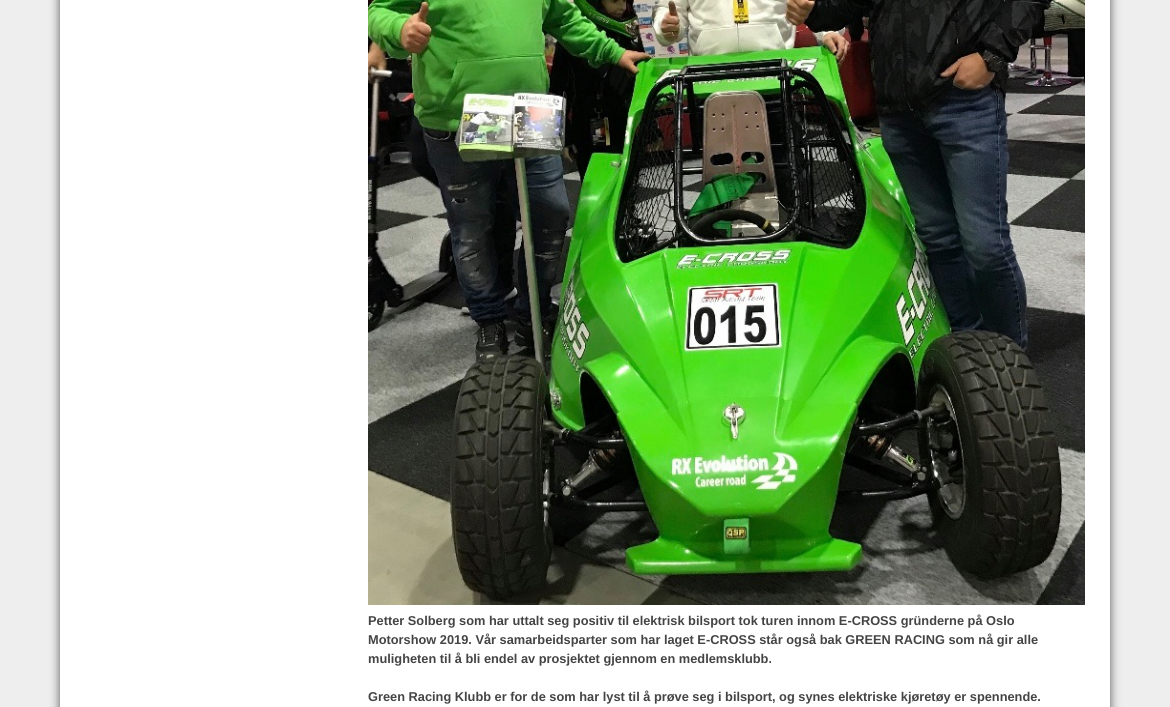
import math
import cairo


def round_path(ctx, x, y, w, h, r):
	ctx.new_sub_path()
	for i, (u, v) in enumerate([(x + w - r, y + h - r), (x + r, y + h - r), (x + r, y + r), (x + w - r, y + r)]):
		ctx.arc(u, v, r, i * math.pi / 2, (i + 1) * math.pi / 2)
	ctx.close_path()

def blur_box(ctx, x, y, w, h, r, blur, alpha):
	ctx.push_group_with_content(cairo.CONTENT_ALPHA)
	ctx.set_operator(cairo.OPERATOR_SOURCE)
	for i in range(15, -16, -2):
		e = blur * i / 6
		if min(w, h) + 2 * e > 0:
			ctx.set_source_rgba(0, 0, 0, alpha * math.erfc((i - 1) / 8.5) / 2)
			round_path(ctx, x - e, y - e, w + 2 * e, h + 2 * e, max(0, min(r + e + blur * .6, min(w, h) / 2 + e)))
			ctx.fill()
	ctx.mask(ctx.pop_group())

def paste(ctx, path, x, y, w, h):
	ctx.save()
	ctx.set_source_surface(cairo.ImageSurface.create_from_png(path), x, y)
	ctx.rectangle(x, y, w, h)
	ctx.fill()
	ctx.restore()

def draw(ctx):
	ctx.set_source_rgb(0.933, 0.933, 0.933)
	ctx.paint()
	ctx.set_source_rgb(0.333, 0.333, 0.333)
	blur_box(ctx, 60, -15, 1050, 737, 0, 5, 1)
	ctx.set_source_rgb(1, 1, 1)
	ctx.rectangle(60, 0, 1050, 707)
	ctx.fill()
	paste(ctx, 'media/1.png', 368, 0, 717, 605)
	ctx.select_font_face('Liberation Sans', cairo.FONT_SLANT_NORMAL, cairo.FONT_WEIGHT_BOLD)
	ctx.set_font_size(12.8)
	ctx.set_source_rgb(0.267, 0.267, 0.267)
	for x, y, s in [
		(368, 625, 'Petter Solberg som har uttalt seg positiv til elektrisk bilsport tok turen innom E-CROSS gründerne på Oslo'),
		(368, 644, 'Motorshow 2019. Vår samarbeidsparter som har laget E-CROSS står også bak GREEN RACING som nå gir alle'),
		(368, 663, 'muligheten til å bli endel av prosjektet gjennom en medlemsklubb.'),
		(368, 701, 'Green Racing Klubb er for de som har lyst til å prøve seg i bilsport, og synes elektriske kjøretøy er spennende.'),
	]:
		ctx.move_to(x, y)
		ctx.show_text(s)


surface = cairo.ImageSurface(cairo.FORMAT_RGB24, 1170, 707)
ctx = cairo.Context(surface)
options = cairo.FontOptions()
options.set_hint_metrics(cairo.HINT_METRICS_OFF)
options.set_hint_style(cairo.HINT_STYLE_NONE)
ctx.set_font_options(options)
ctx.set_miter_limit(4)
draw(ctx)
surface.write_to_png('image.png')
